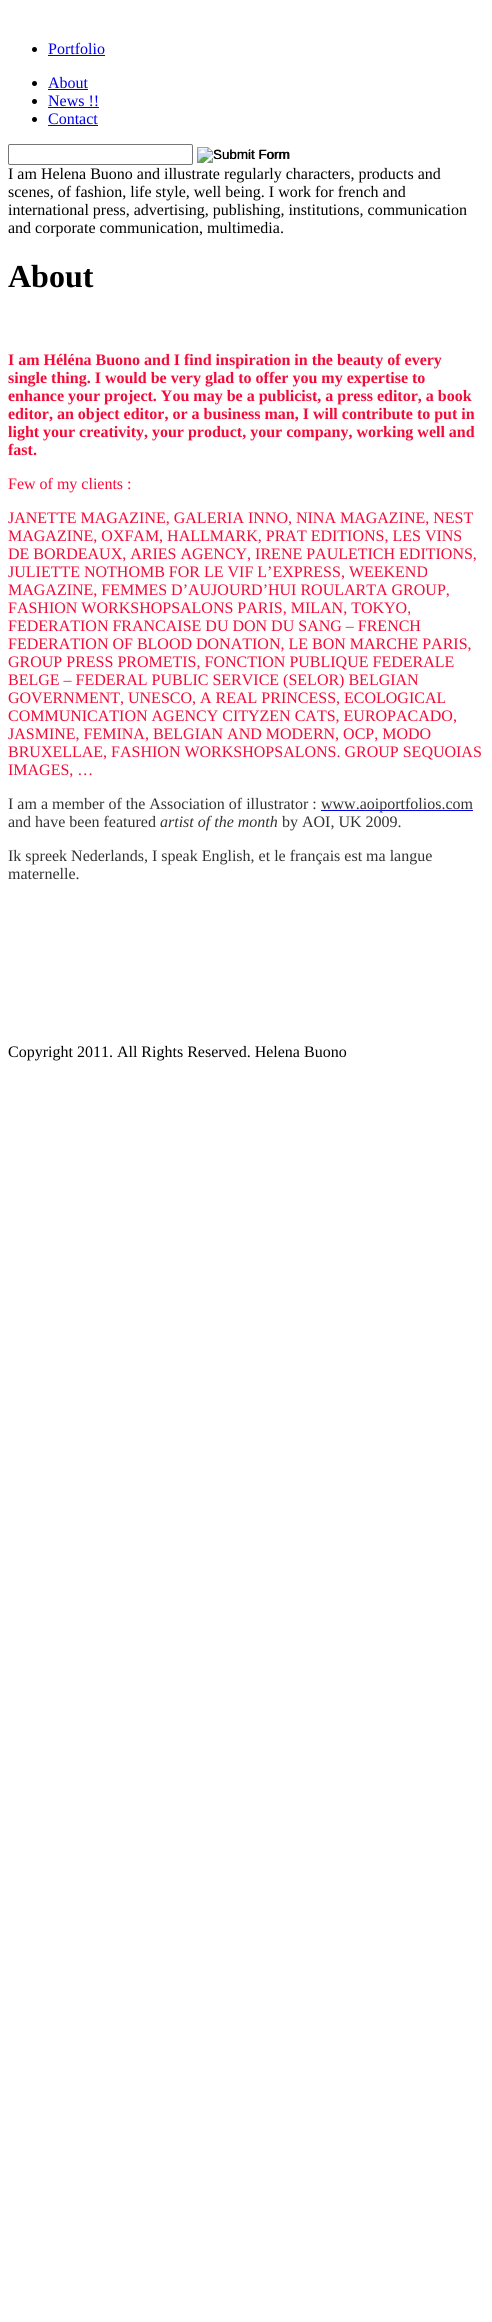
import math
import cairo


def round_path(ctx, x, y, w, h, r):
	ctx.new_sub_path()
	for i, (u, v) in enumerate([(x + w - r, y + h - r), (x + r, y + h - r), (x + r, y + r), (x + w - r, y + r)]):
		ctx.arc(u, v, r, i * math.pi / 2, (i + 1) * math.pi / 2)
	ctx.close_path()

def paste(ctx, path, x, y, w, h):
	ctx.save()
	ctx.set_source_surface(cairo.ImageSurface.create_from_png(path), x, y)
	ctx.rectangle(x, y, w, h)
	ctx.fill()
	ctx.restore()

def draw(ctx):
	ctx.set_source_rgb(1, 1, 1)
	ctx.paint()
	ctx.set_source_rgb(0, 0, 0)
	ctx.arc(34.5, 49.5, 2.5, 0, 2 * math.pi)
	ctx.fill()
	ctx.select_font_face('Liberation Serif')
	ctx.set_font_size(16)
	ctx.set_source_rgb(0, 0, 0.933)
	ctx.move_to(48, 54)
	ctx.show_text('Portfolio')
	ctx.rectangle(48, 55, 57, 1)
	ctx.fill()
	ctx.set_source_rgb(0, 0, 0)
	ctx.arc(34.5, 83.5, 2.5, 0, 2 * math.pi)
	ctx.fill()
	ctx.set_source_rgb(0, 0, 0.933)
	ctx.move_to(48, 88)
	ctx.show_text('About')
	ctx.rectangle(48, 89, 40, 1)
	ctx.fill()
	ctx.set_source_rgb(0, 0, 0)
	ctx.arc(34.5, 101.5, 2.5, 0, 2 * math.pi)
	ctx.fill()
	ctx.set_source_rgb(0, 0, 0.933)
	ctx.move_to(48, 106)
	ctx.show_text('News !!')
	ctx.rectangle(48, 107, 51, 1)
	ctx.fill()
	ctx.set_source_rgb(0, 0, 0)
	ctx.arc(34.5, 119.5, 2.5, 0, 2 * math.pi)
	ctx.fill()
	ctx.set_source_rgb(0, 0, 0.933)
	ctx.move_to(48, 124)
	ctx.show_text('Contact')
	ctx.rectangle(48, 125, 50, 1)
	ctx.fill()
	round_path(ctx, 8.5, 144.5, 184, 20, 1.5)
	ctx.set_source_rgb(0.463, 0.463, 0.463)
	ctx.set_line_width(1)
	ctx.stroke()
	paste(ctx, 'media/1.png', 197, 147, 92, 16)
	ctx.select_font_face('Liberation Sans')
	ctx.set_font_size(13.5)
	ctx.set_source_rgb(0, 0, 0)
	ctx.move_to(213, 159)
	ctx.show_text('Submit Form')
	ctx.select_font_face('Liberation Serif')
	ctx.set_font_size(16)
	for x, y, s in [
		(8, 179, 'I am Helena Buono and illustrate regularly characters, products and'),
		(8, 197, 'scenes, of fashion, life style, well being. I work for french and'),
		(8, 215, 'international press, advertising, publishing, institutions, communication'),
		(8, 233, 'and corporate communication, multimedia.'),
	]:
		ctx.move_to(x, y)
		ctx.show_text(s)
	ctx.select_font_face('Liberation Serif', cairo.FONT_SLANT_NORMAL, cairo.FONT_WEIGHT_BOLD)
	ctx.set_font_size(32)
	ctx.move_to(8, 287)
	ctx.show_text('About')
	ctx.set_font_size(16)
	ctx.set_source_rgb(0.953, 0.043, 0.224)
	for x, y, s in [
		(8, 365, 'I am Héléna Buono and I find inspiration in the beauty of every'),
		(8, 383, 'single thing. I would be very glad to offer you my expertise to'),
		(8, 401, 'enhance your project. You may be a publicist, a press editor, a book'),
		(8, 419, 'editor, an object editor, or a business man, I will contribute to put in'),
		(8, 437, 'light your creativity, your product, your company, working well and'),
		(8, 455, 'fast.'),
	]:
		ctx.move_to(x, y)
		ctx.show_text(s)
	ctx.select_font_face('Liberation Serif')
	for x, y, s in [
		(8, 489, 'Few of my clients :'),
		(8, 523, 'JANETTE MAGAZINE, GALERIA INNO, NINA MAGAZINE, NEST'),
		(8, 541, 'MAGAZINE, OXFAM, HALLMARK, PRAT EDITIONS, LES VINS'),
		(8, 559, 'DE BORDEAUX, ARIES AGENCY, IRENE PAULETICH EDITIONS,'),
		(8, 577, 'JULIETTE NOTHOMB FOR LE VIF L’EXPRESS, WEEKEND'),
		(8, 595, 'MAGAZINE, FEMMES D’AUJOURD’HUI ROULARTA GROUP,'),
		(8, 613, 'FASHION WORKSHOPSALONS PARIS, MILAN, TOKYO,'),
		(8, 631, 'FEDERATION FRANCAISE DU DON DU SANG – FRENCH'),
		(8, 649, 'FEDERATION OF BLOOD DONATION, LE BON MARCHE PARIS,'),
		(8, 667, 'GROUP PRESS PROMETIS, FONCTION PUBLIQUE FEDERALE'),
		(8, 685, 'BELGE – FEDERAL PUBLIC SERVICE (SELOR) BELGIAN'),
		(8, 703, 'GOVERNMENT, UNESCO, A REAL PRINCESS, ECOLOGICAL'),
		(8, 721, 'COMMUNICATION AGENCY CITYZEN CATS, EUROPACADO,'),
		(8, 739, 'JASMINE, FEMINA, BELGIAN AND MODERN, OCP, MODO'),
		(8, 757, 'BRUXELLAE, FASHION WORKSHOPSALONS. GROUP SEQUOIAS'),
		(8, 775, 'IMAGES, …'),
	]:
		ctx.move_to(x, y)
		ctx.show_text(s)
	ctx.set_source_rgb(0.2, 0.2, 0.2)
	ctx.move_to(8, 809)
	ctx.show_text('I am a member of the Association of illustrator :')
	ctx.set_source_rgb(0, 0, 0.933)
	ctx.rectangle(321, 810, 152, 1)
	ctx.fill()
	ctx.set_source_rgb(0.2, 0.2, 0.2)
	ctx.move_to(321, 809)
	ctx.show_text('www.aoiportfolios.com')
	ctx.move_to(8, 827)
	ctx.show_text('and have been featured')
	ctx.select_font_face('Liberation Serif', cairo.FONT_SLANT_ITALIC)
	ctx.move_to(160, 827)
	ctx.show_text('artist of the month')
	ctx.select_font_face('Liberation Serif')
	for x, y, s in [
		(282, 827, 'by AOI, UK 2009.'),
		(8, 861, 'Ik spreek Nederlands, I speak English, et le français est ma langue'),
		(8, 879, 'maternelle.'),
	]:
		ctx.move_to(x, y)
		ctx.show_text(s)
	ctx.set_source_rgb(0, 0, 0)
	ctx.move_to(8, 1057)
	ctx.show_text('Copyright 2011. All Rights Reserved. Helena Buono')


surface = cairo.ImageSurface(cairo.FORMAT_RGB24, 492, 2322)
ctx = cairo.Context(surface)
options = cairo.FontOptions()
options.set_hint_metrics(cairo.HINT_METRICS_OFF)
options.set_hint_style(cairo.HINT_STYLE_NONE)
ctx.set_font_options(options)
ctx.set_miter_limit(4)
draw(ctx)
surface.write_to_png('image.png')
